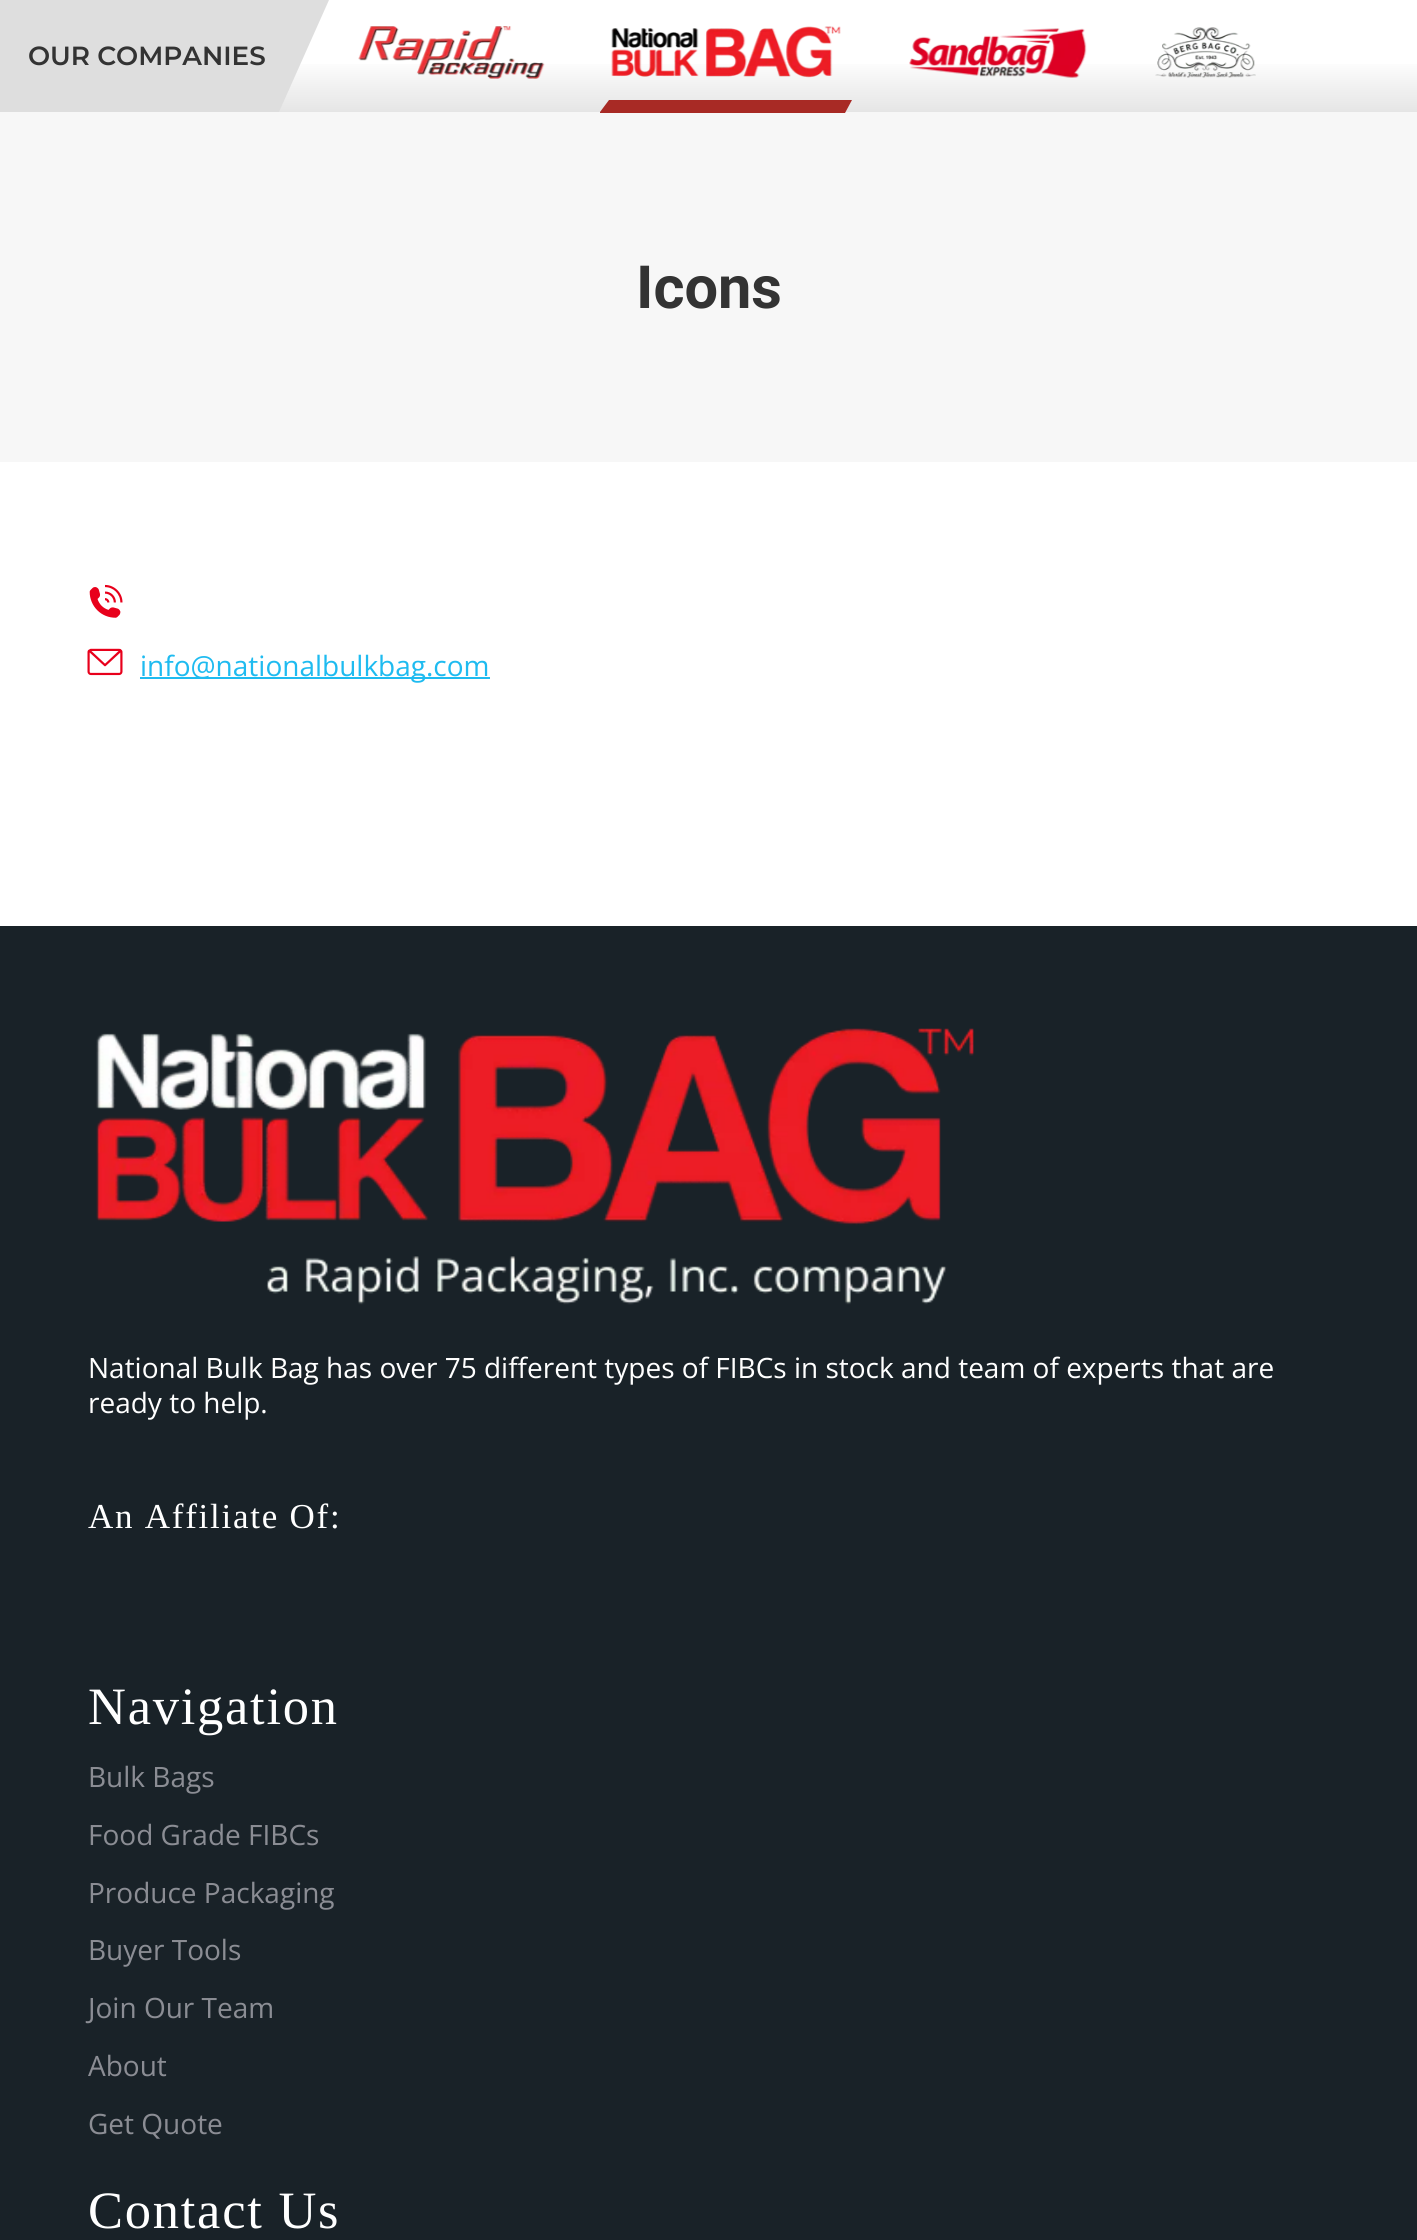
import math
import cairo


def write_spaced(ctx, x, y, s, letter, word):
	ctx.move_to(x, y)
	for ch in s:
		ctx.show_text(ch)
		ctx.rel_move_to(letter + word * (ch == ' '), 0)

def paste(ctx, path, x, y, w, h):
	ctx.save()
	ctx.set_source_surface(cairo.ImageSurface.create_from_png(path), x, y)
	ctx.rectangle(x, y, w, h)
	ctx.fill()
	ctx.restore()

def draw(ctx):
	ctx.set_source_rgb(1, 1, 1)
	ctx.paint()
	gradient = cairo.LinearGradient(709, 0, 709, 112)
	gradient.add_color_stop_rgba(0.56, 0.992, 0.992, 0.992, 1)
	gradient.add_color_stop_rgba(1, 0.898, 0.898, 0.898, 1)
	ctx.set_source(gradient)
	ctx.rectangle(279, 64, 1138, 48)
	ctx.fill()
	ctx.set_source_rgb(0.871, 0.871, 0.871)
	ctx.new_path()
	ctx.move_to(0, 0)
	ctx.line_to(0, 112)
	ctx.line_to(279, 112)
	ctx.line_to(329, 0)
	ctx.close_path()
	ctx.fill()
	ctx.select_font_face('Montserrat SemiBold')
	ctx.set_font_size(26.25)
	ctx.set_source_rgb(0.2, 0.2, 0.2)
	ctx.move_to(28, 65)
	ctx.show_text('OUR COMPANIES')
	paste(ctx, 'media/1.png', 358, 26, 187, 53)
	paste(ctx, 'media/2.png', 611, 26, 230, 52)
	ctx.set_source_rgb(0.965, 0.965, 0.965)
	ctx.rectangle(0, 112, 1417, 350)
	ctx.fill()
	ctx.set_source_rgb(0.659, 0.165, 0.145)
	ctx.new_path()
	ctx.move_to(600, 112)
	ctx.line_to(609, 100)
	ctx.line_to(852, 100)
	ctx.line_to(845, 113)
	ctx.line_to(600, 113)
	ctx.close_path()
	ctx.fill()
	paste(ctx, 'media/3.png', 909, 28, 178, 50)
	paste(ctx, 'media/4.png', 1155, 27, 101, 51)
	ctx.select_font_face('Roboto', cairo.FONT_SLANT_NORMAL, cairo.FONT_WEIGHT_BOLD)
	ctx.set_font_size(59.5)
	ctx.set_source_rgb(0.2, 0.2, 0.2)
	ctx.move_to(636, 308)
	ctx.show_text('Icons')
	paste(ctx, 'media/5.png', 89, 584, 34, 34)
	paste(ctx, 'media/6.png', 87, 648, 36, 28)
	ctx.set_source_rgb(0.118, 0.733, 0.941)
	ctx.rectangle(140, 677, 350, 2)
	ctx.fill()
	ctx.select_font_face('Open Sans')
	ctx.set_font_size(28)
	ctx.move_to(140, 676)
	ctx.show_text('info@nationalbulkbag.com')
	ctx.set_source_rgb(0.098, 0.133, 0.157)
	ctx.rectangle(0, 926, 1417, 1314)
	ctx.fill()
	paste(ctx, 'media/7.png', 96, 1028, 879, 277)
	ctx.set_source_rgb(1, 1, 1)
	ctx.move_to(88, 1378)
	ctx.show_text('National Bulk Bag has over 75 different types of FIBCs in stock and team of experts that are')
	ctx.move_to(88, 1413)
	ctx.show_text('ready to help.')
	ctx.select_font_face('Liberation Serif')
	ctx.set_font_size(35)
	write_spaced(ctx, 88, 1528, 'An Affiliate Of:', 1.75, 0)
	ctx.set_font_size(52.5)
	write_spaced(ctx, 88, 1724, 'Navigation', 1.75, 0)
	ctx.select_font_face('Open Sans')
	ctx.set_font_size(28)
	ctx.set_source_rgb(0.545, 0.553, 0.58)
	for x, y, s in [
		(88, 1787, 'Bulk Bags'),
		(88, 1845, 'Food Grade FIBCs'),
		(88, 1903, 'Produce Packaging'),
		(88, 1960, 'Buyer Tools'),
		(88, 2018, 'Join Our Team'),
		(88, 2076, 'About'),
		(88, 2134, 'Get Quote'),
	]:
		ctx.move_to(x, y)
		ctx.show_text(s)
	ctx.select_font_face('Liberation Serif')
	ctx.set_font_size(52.5)
	ctx.set_source_rgb(1, 1, 1)
	write_spaced(ctx, 88, 2228, 'Contact Us', 1.75, 0)


surface = cairo.ImageSurface(cairo.FORMAT_RGB24, 1417, 2240)
ctx = cairo.Context(surface)
options = cairo.FontOptions()
options.set_hint_metrics(cairo.HINT_METRICS_OFF)
options.set_hint_style(cairo.HINT_STYLE_NONE)
ctx.set_font_options(options)
ctx.set_miter_limit(4)
draw(ctx)
surface.write_to_png('image.png')
